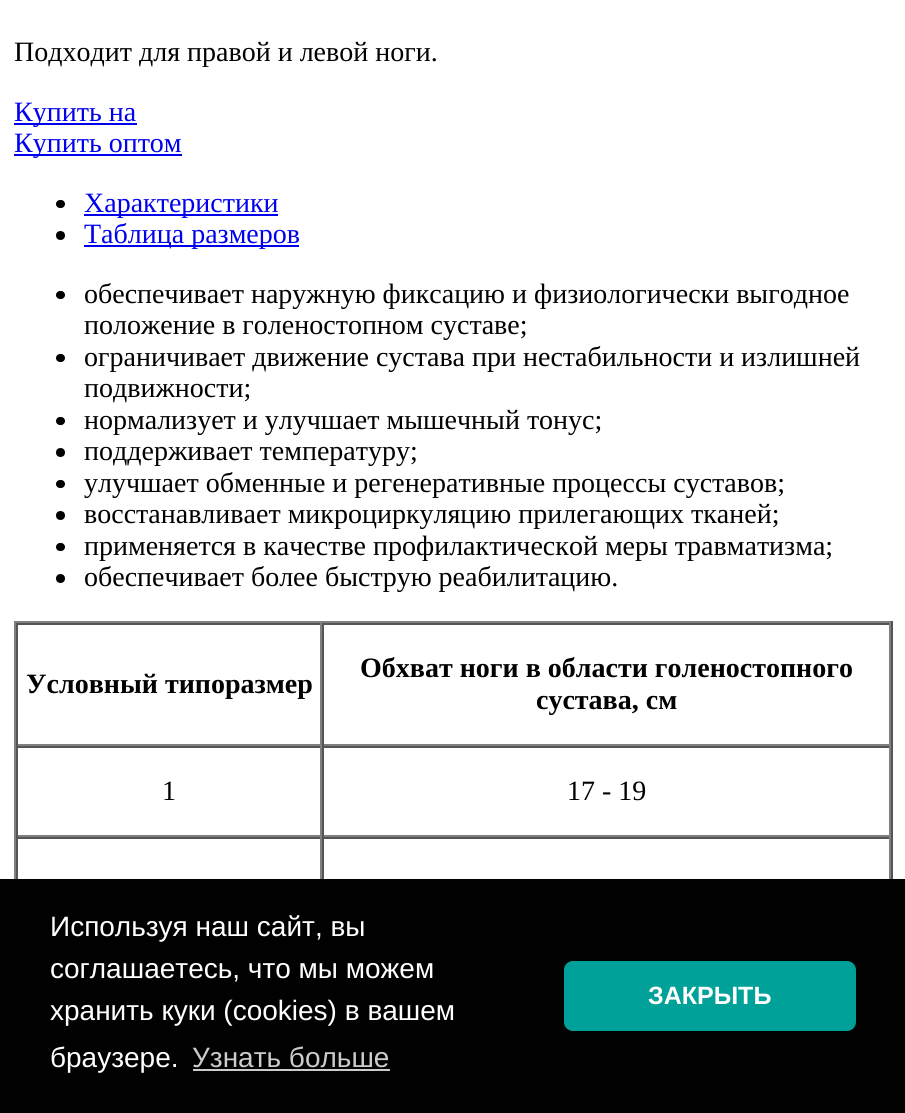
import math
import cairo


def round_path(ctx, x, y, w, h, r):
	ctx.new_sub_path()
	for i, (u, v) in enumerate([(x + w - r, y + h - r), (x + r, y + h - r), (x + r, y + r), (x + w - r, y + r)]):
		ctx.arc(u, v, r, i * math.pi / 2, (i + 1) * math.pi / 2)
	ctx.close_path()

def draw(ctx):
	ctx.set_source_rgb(1, 1, 1)
	ctx.paint()
	ctx.select_font_face('Liberation Serif')
	ctx.set_font_size(28)
	ctx.set_source_rgb(0, 0, 0)
	ctx.move_to(14, 61)
	ctx.show_text('Подходит для правой и левой ноги.')
	ctx.set_source_rgb(0, 0, 0.933)
	ctx.rectangle(14, 123, 123, 2)
	ctx.fill()
	ctx.move_to(14, 121)
	ctx.show_text('Купить на')
	ctx.rectangle(14, 154, 168, 2)
	ctx.fill()
	ctx.move_to(14, 152)
	ctx.show_text('Купить оптом')
	ctx.set_source_rgb(0, 0, 0)
	round_path(ctx, 56, 200, 9, 8, 4)
	ctx.fill()
	ctx.set_source_rgb(0, 0, 0.933)
	ctx.rectangle(84, 214, 194, 2)
	ctx.fill()
	ctx.move_to(84, 212)
	ctx.show_text('Характеристики')
	ctx.set_source_rgb(0, 0, 0)
	ctx.new_path()
	ctx.arc(60.5, 235.5, 4.5, 0, 2 * math.pi)
	ctx.fill()
	ctx.set_source_rgb(0, 0, 0.933)
	ctx.rectangle(84, 245, 215, 2)
	ctx.fill()
	ctx.move_to(84, 243)
	ctx.show_text('Таблица размеров')
	ctx.set_source_rgb(0, 0, 0)
	round_path(ctx, 56, 291, 9, 8, 4)
	ctx.fill()
	ctx.move_to(84, 303)
	ctx.show_text('обеспечивает наружную фиксацию и физиологически выгодное')
	ctx.move_to(84, 334)
	ctx.show_text('положение в голеностопном суставе;')
	round_path(ctx, 56, 354, 9, 8, 4)
	ctx.fill()
	ctx.move_to(84, 366)
	ctx.show_text('ограничивает движение сустава при нестабильности и излишней')
	ctx.move_to(84, 397)
	ctx.show_text('подвижности;')
	round_path(ctx, 56, 417, 9, 8, 4)
	ctx.fill()
	ctx.move_to(84, 429)
	ctx.show_text('нормализует и улучшает мышечный тонус;')
	ctx.new_path()
	ctx.arc(60.5, 452.5, 4.5, 0, 2 * math.pi)
	ctx.fill()
	ctx.move_to(84, 460)
	ctx.show_text('поддерживает температуру;')
	round_path(ctx, 56, 480, 9, 8, 4)
	ctx.fill()
	ctx.move_to(84, 492)
	ctx.show_text('улучшает обменные и регенеративные процессы суставов;')
	ctx.new_path()
	ctx.arc(60.5, 515.5, 4.5, 0, 2 * math.pi)
	ctx.fill()
	ctx.move_to(84, 523)
	ctx.show_text('восстанавливает микроциркуляцию прилегающих тканей;')
	round_path(ctx, 56, 543, 9, 8, 4)
	ctx.fill()
	ctx.move_to(84, 555)
	ctx.show_text('применяется в качестве профилактической меры травматизма;')
	ctx.new_path()
	ctx.arc(60.5, 578.5, 4.5, 0, 2 * math.pi)
	ctx.fill()
	ctx.move_to(84, 586)
	ctx.show_text('обеспечивает более быструю реабилитацию.')
	ctx.set_source_rgb(0.502, 0.502, 0.502)
	ctx.rectangle(14, 621, 879, 2)
	ctx.fill()
	ctx.set_source_rgb(0.333, 0.333, 0.333)
	ctx.rectangle(891, 621, 2, 258)
	ctx.fill()
	ctx.set_source_rgb(0.502, 0.502, 0.502)
	ctx.rectangle(14, 621, 2, 258)
	ctx.fill()
	ctx.set_source_rgb(0.333, 0.333, 0.333)
	ctx.rectangle(16, 623, 875, 2)
	ctx.fill()
	ctx.set_source_rgb(0.502, 0.502, 0.502)
	ctx.rectangle(320, 623, 2, 123)
	ctx.rectangle(16, 744, 306, 2)
	ctx.fill()
	ctx.set_source_rgb(0.333, 0.333, 0.333)
	ctx.rectangle(16, 623, 2, 123)
	ctx.fill()
	ctx.select_font_face('Liberation Serif', cairo.FONT_SLANT_NORMAL, cairo.FONT_WEIGHT_BOLD)
	ctx.set_source_rgb(0, 0, 0)
	ctx.move_to(26, 693)
	ctx.show_text('Условный типоразмер')
	ctx.set_source_rgb(0.502, 0.502, 0.502)
	ctx.rectangle(889, 623, 2, 123)
	ctx.rectangle(322, 744, 569, 2)
	ctx.fill()
	ctx.set_source_rgb(0.333, 0.333, 0.333)
	ctx.rectangle(322, 623, 2, 123)
	ctx.fill()
	ctx.set_source_rgb(0, 0, 0)
	ctx.move_to(360, 677)
	ctx.show_text('Обхват ноги в области голеностопного')
	ctx.move_to(536, 709)
	ctx.show_text('сустава, см')
	ctx.set_source_rgb(0.333, 0.333, 0.333)
	ctx.rectangle(16, 746, 875, 2)
	ctx.fill()
	ctx.set_source_rgb(0.502, 0.502, 0.502)
	ctx.rectangle(320, 746, 2, 91)
	ctx.rectangle(16, 835, 306, 2)
	ctx.fill()
	ctx.set_source_rgb(0.333, 0.333, 0.333)
	ctx.rectangle(16, 746, 2, 91)
	ctx.fill()
	ctx.select_font_face('Liberation Serif')
	ctx.set_source_rgb(0, 0, 0)
	ctx.move_to(162, 800)
	ctx.show_text('1')
	ctx.set_source_rgb(0.502, 0.502, 0.502)
	ctx.rectangle(889, 746, 2, 91)
	ctx.rectangle(322, 835, 569, 2)
	ctx.fill()
	ctx.set_source_rgb(0.333, 0.333, 0.333)
	ctx.rectangle(322, 746, 2, 91)
	ctx.fill()
	ctx.set_source_rgb(0, 0, 0)
	ctx.move_to(567, 800)
	ctx.show_text('17 - 19')
	ctx.set_source_rgb(0.333, 0.333, 0.333)
	ctx.rectangle(16, 837, 875, 2)
	ctx.fill()
	ctx.set_source_rgb(0.502, 0.502, 0.502)
	ctx.rectangle(320, 837, 2, 42)
	ctx.fill()
	ctx.set_source_rgb(0.333, 0.333, 0.333)
	ctx.rectangle(16, 837, 2, 42)
	ctx.fill()
	ctx.set_source_rgb(0.502, 0.502, 0.502)
	ctx.rectangle(889, 837, 2, 42)
	ctx.fill()
	ctx.set_source_rgb(0.333, 0.333, 0.333)
	ctx.rectangle(322, 837, 2, 42)
	ctx.fill()
	ctx.set_source_rgb(0.004, 0.004, 0.004)
	ctx.rectangle(0, 879, 905, 234)
	ctx.fill()
	ctx.select_font_face('Liberation Sans')
	ctx.set_source_rgb(1, 1, 1)
	for x, y, s in [
		(50, 936, 'Используя наш сайт, вы'),
		(50, 978, 'соглашаетесь, что мы можем'),
		(50, 1020, 'хранить куки (cookies) в вашем'),
		(50, 1067, 'браузере.'),
	]:
		ctx.move_to(x, y)
		ctx.show_text(s)
	ctx.set_source_rgb(0.8, 0.8, 0.8)
	ctx.move_to(192, 1067)
	ctx.show_text('Узнать больше')
	ctx.rectangle(193, 1069, 197, 2)
	ctx.fill()
	ctx.set_source_rgb(0, 0.631, 0.6)
	round_path(ctx, 564, 961, 292, 70, 9)
	ctx.fill()
	ctx.select_font_face('Liberation Sans', cairo.FONT_SLANT_NORMAL, cairo.FONT_WEIGHT_BOLD)
	ctx.set_font_size(25)
	ctx.set_source_rgb(1, 1, 1)
	ctx.move_to(648, 1004)
	ctx.show_text('ЗАКРЫТЬ')


surface = cairo.ImageSurface(cairo.FORMAT_RGB24, 905, 1113)
ctx = cairo.Context(surface)
options = cairo.FontOptions()
options.set_hint_metrics(cairo.HINT_METRICS_OFF)
options.set_hint_style(cairo.HINT_STYLE_NONE)
ctx.set_font_options(options)
ctx.set_miter_limit(4)
draw(ctx)
surface.write_to_png('image.png')
